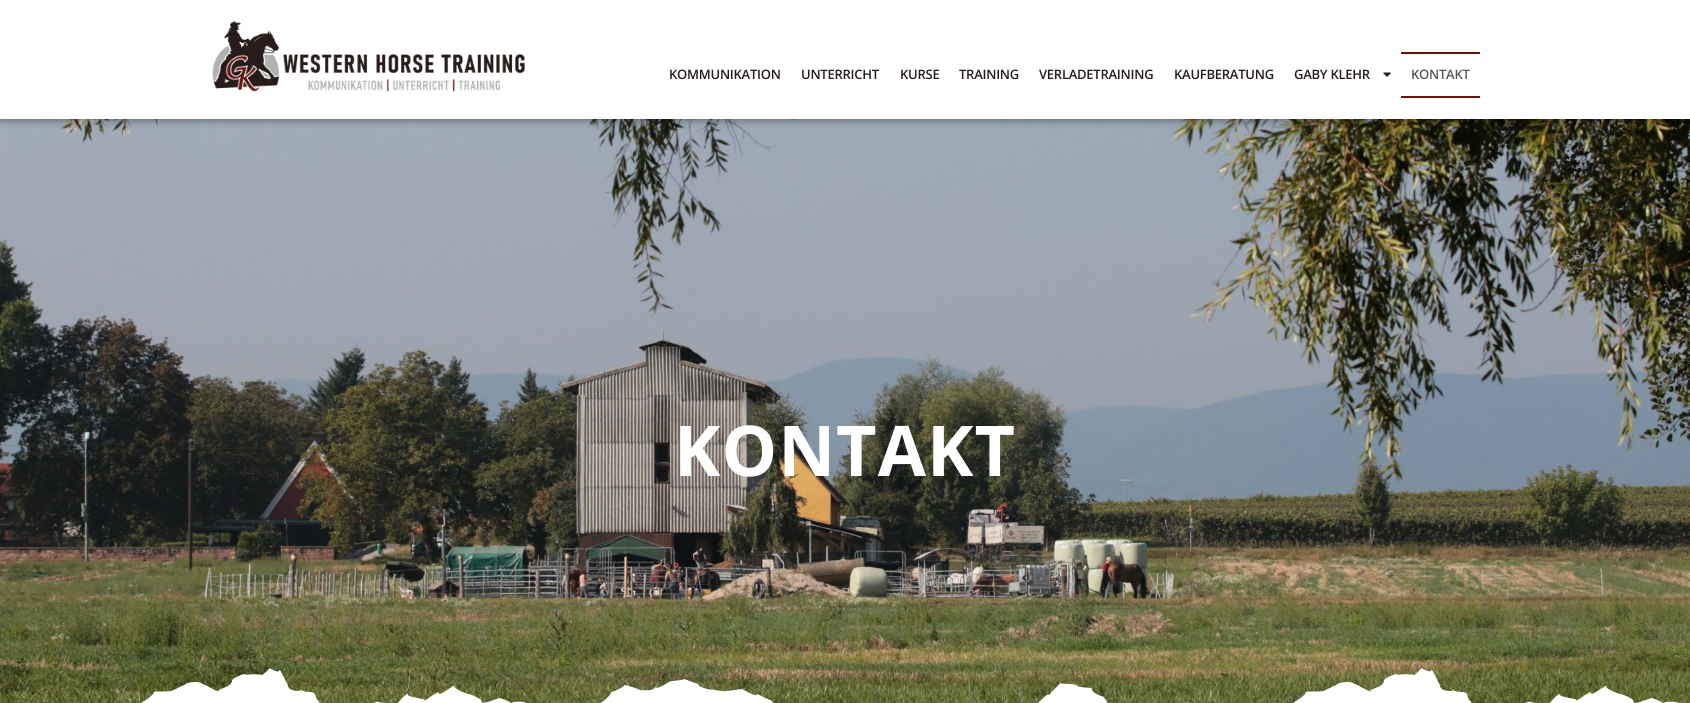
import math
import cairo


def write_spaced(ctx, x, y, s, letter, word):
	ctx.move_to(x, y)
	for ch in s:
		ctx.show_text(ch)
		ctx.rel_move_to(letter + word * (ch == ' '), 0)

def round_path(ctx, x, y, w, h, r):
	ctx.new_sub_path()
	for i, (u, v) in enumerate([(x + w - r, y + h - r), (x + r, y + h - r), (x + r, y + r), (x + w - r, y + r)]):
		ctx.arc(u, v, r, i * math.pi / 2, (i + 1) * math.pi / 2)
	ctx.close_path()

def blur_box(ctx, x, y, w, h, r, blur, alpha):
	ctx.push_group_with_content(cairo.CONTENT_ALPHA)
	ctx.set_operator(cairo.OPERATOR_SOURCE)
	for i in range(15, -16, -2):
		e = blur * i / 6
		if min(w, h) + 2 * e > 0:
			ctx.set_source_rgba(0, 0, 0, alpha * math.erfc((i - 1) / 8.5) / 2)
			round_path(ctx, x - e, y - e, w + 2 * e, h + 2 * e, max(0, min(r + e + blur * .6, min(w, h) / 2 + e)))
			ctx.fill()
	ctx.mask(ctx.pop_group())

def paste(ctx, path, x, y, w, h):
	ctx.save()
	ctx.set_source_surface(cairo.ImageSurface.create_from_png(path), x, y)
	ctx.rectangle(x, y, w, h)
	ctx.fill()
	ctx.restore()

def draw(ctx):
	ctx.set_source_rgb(1, 1, 1)
	ctx.paint()
	paste(ctx, 'media/3.png', 0, 119, 1690, 584)
	ctx.save()
	ctx.rectangle(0, 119, 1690, 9)
	ctx.clip()
	ctx.set_source_rgb(0, 0, 0)
	blur_box(ctx, 0, 0, 1690, 119, 0, 5, 0.5)
	ctx.restore()
	paste(ctx, 'media/1.png', 212, 21, 313, 71)
	ctx.select_font_face('Open Sans SemiBold')
	ctx.set_font_size(13)
	ctx.set_source_rgb(0.157, 0.114, 0.114)
	for x, y, s in [
		(669, 79, 'KOMMUNIKATION'),
		(801, 79, 'UNTERRICHT'),
		(900, 79, 'KURSE'),
		(959, 79, 'TRAINING'),
		(1039, 79, 'VERLADETRAINING'),
		(1174, 79, 'KAUFBERATUNG'),
		(1294, 79, 'GABY KLEHR'),
	]:
		write_spaced(ctx, x, y, s, -0.25, 0)
	paste(ctx, 'media/2.png', 1383, 72, 8, 5)
	ctx.set_source_rgb(0.396, 0.078, 0.055)
	ctx.rectangle(1401, 52, 79, 2)
	ctx.fill()
	ctx.set_source_rgb(0.329, 0.349, 0.373)
	write_spaced(ctx, 1411, 79, 'KONTAKT', -0.25, 0)
	ctx.set_source_rgb(0.396, 0.078, 0.055)
	ctx.rectangle(1401, 96, 79, 2)
	ctx.fill()
	ctx.select_font_face('Open Sans', cairo.FONT_SLANT_NORMAL, cairo.FONT_WEIGHT_BOLD)
	ctx.set_font_size(70)
	ctx.set_source_rgb(1, 1, 1)
	write_spaced(ctx, 674, 476, 'KONTAKT', 1, 0)
	paste(ctx, 'media/4.png', 141, 668, 1537, 35)


surface = cairo.ImageSurface(cairo.FORMAT_RGB24, 1690, 703)
ctx = cairo.Context(surface)
options = cairo.FontOptions()
options.set_hint_metrics(cairo.HINT_METRICS_OFF)
options.set_hint_style(cairo.HINT_STYLE_NONE)
ctx.set_font_options(options)
ctx.set_miter_limit(4)
draw(ctx)
surface.write_to_png('image.png')
